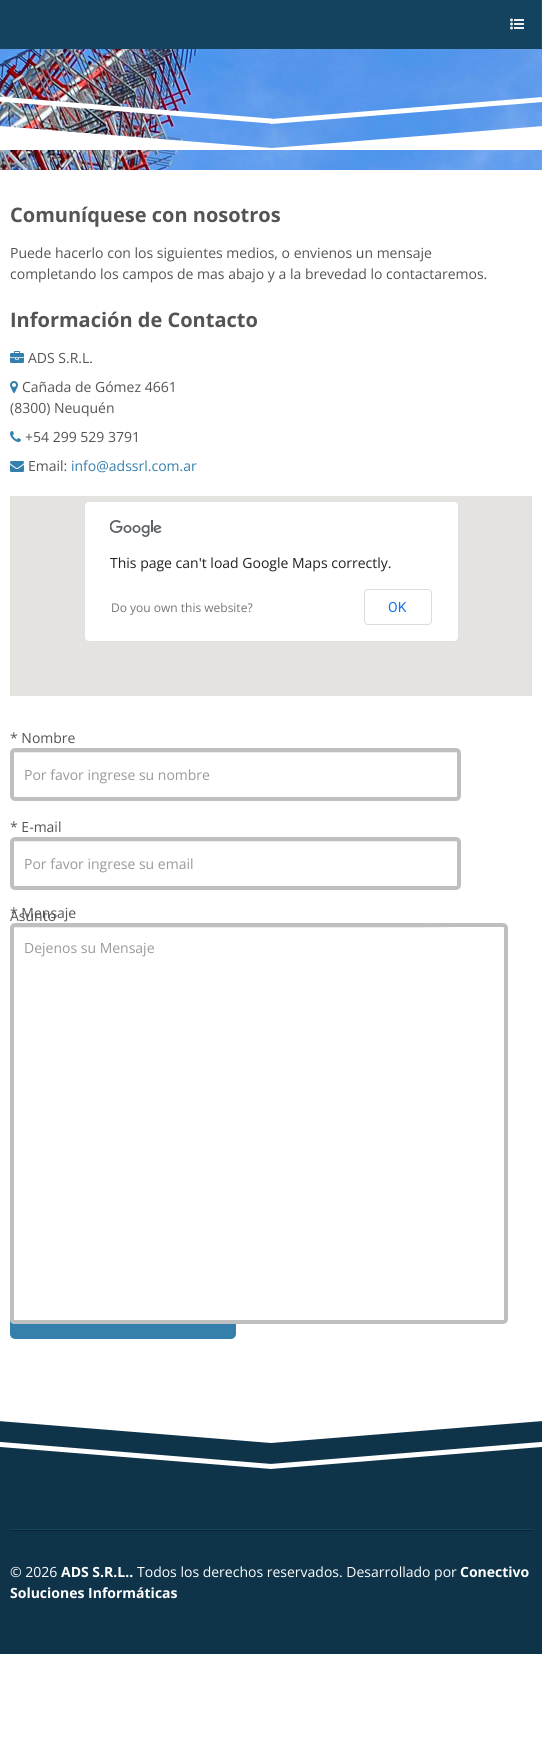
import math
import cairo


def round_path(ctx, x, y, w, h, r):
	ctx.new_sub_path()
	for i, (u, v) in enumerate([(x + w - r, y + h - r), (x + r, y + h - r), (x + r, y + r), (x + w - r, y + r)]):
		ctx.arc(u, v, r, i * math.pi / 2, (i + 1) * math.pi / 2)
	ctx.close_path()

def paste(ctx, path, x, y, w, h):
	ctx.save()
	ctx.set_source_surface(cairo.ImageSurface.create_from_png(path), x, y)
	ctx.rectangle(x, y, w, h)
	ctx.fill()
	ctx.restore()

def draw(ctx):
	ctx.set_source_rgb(1, 1, 1)
	ctx.paint()
	paste(ctx, 'media/1.png', 0, 49, 542, 121)
	ctx.set_source_rgb(0.075, 0.263, 0.373)
	ctx.rectangle(0, 0, 542, 49)
	ctx.fill()
	ctx.set_source_rgb(0.09, 0.322, 0.455)
	ctx.rectangle(541, 0, 1, 48)
	ctx.fill()
	paste(ctx, 'media/2.png', 510, 18, 14, 12)
	paste(ctx, 'media/3.png', 0, 96, 542, 54)
	ctx.select_font_face('Open Sans', cairo.FONT_SLANT_NORMAL, cairo.FONT_WEIGHT_BOLD)
	ctx.set_font_size(20)
	ctx.set_source_rgb(0.329, 0.329, 0.329)
	ctx.move_to(10, 222)
	ctx.show_text('Comuníquese con nosotros')
	ctx.select_font_face('Open Sans')
	ctx.set_font_size(14)
	ctx.move_to(10, 258)
	ctx.show_text('Puede hacerlo con los siguientes medios, o envienos un mensaje')
	ctx.move_to(10, 279)
	ctx.show_text('completando los campos de mas abajo y a la brevedad lo contactaremos.')
	ctx.select_font_face('Open Sans', cairo.FONT_SLANT_NORMAL, cairo.FONT_WEIGHT_BOLD)
	ctx.set_font_size(20)
	ctx.move_to(10, 327)
	ctx.show_text('Información de Contacto')
	paste(ctx, 'media/4.png', 10, 351, 14, 12)
	ctx.select_font_face('Open Sans')
	ctx.set_font_size(14)
	ctx.move_to(28, 363)
	ctx.show_text('ADS S.R.L.')
	paste(ctx, 'media/5.png', 10, 381, 8, 12)
	ctx.move_to(22, 392)
	ctx.show_text('Cañada de Gómez 4661')
	ctx.move_to(10, 413)
	ctx.show_text('(8300) Neuquén')
	paste(ctx, 'media/6.png', 10, 431, 11, 11)
	ctx.move_to(25, 442)
	ctx.show_text('+54 299 529 3791')
	paste(ctx, 'media/7.png', 10, 461, 14, 11)
	ctx.move_to(28, 471)
	ctx.show_text('Email:')
	ctx.set_source_rgb(0.204, 0.498, 0.675)
	ctx.move_to(71, 471)
	ctx.show_text('info@adssrl.com.ar')
	ctx.set_source_rgb(0.898, 0.89, 0.875)
	ctx.rectangle(10, 496, 522, 200)
	ctx.fill()
	ctx.set_source_rgb(1, 1, 1)
	round_path(ctx, 84, 501, 375, 141, 5)
	ctx.fill()
	round_path(ctx, 84.5, 501.5, 374, 140, 4.5)
	ctx.set_source_rgba(0, 0, 0, 0.12)
	ctx.set_line_width(1)
	ctx.stroke()
	paste(ctx, 'media/8.png', 110, 520, 52, 17)
	ctx.set_source_rgb(0.129, 0.129, 0.129)
	ctx.move_to(110, 568)
	ctx.show_text('This page can\'t load Google Maps correctly.')
	ctx.set_font_size(12)
	ctx.set_source_rgb(0.459, 0.459, 0.459)
	ctx.move_to(111, 612)
	ctx.show_text('Do you own this website?')
	round_path(ctx, 364.5, 589.5, 67, 35, 3.5)
	ctx.set_source_rgb(0.855, 0.863, 0.878)
	ctx.stroke()
	ctx.select_font_face('Roboto')
	ctx.set_font_size(14)
	ctx.set_source_rgb(0.102, 0.451, 0.91)
	ctx.move_to(388, 612)
	ctx.show_text('OK')
	ctx.select_font_face('Open Sans')
	ctx.set_source_rgb(0.329, 0.329, 0.329)
	ctx.move_to(10, 743)
	ctx.show_text('* Nombre')
	ctx.set_source_rgb(0.925, 0.925, 0.925)
	ctx.new_path()
	ctx.move_to(15, 753)
	ctx.line_to(456, 753)
	ctx.line_to(457, 753)
	ctx.line_to(457, 754)
	ctx.curve_to(457, 753, 457, 752, 456, 752)
	ctx.line_to(15, 752)
	ctx.line_to(14, 753)
	ctx.line_to(14, 754)
	ctx.curve_to(14, 753, 14, 753, 15, 753)
	ctx.close_path()
	ctx.fill()
	round_path(ctx, 12, 750, 447, 49, 3)
	ctx.set_source_rgb(0.749, 0.749, 0.749)
	ctx.set_line_width(4)
	ctx.stroke()
	ctx.set_source_rgb(0.6, 0.6, 0.6)
	ctx.move_to(24, 780)
	ctx.show_text('Por favor ingrese su nombre')
	ctx.set_source_rgb(0.329, 0.329, 0.329)
	ctx.move_to(10, 832)
	ctx.show_text('* E-mail')
	ctx.set_source_rgb(0.925, 0.925, 0.925)
	ctx.new_path()
	ctx.move_to(15, 842)
	ctx.line_to(456, 842)
	ctx.line_to(457, 842)
	ctx.line_to(457, 843)
	ctx.curve_to(457, 842, 457, 841, 456, 841)
	ctx.line_to(15, 841)
	ctx.line_to(14, 842)
	ctx.line_to(14, 843)
	ctx.curve_to(14, 842, 14, 842, 15, 842)
	ctx.close_path()
	ctx.fill()
	round_path(ctx, 12, 839, 447, 49, 3)
	ctx.set_source_rgb(0.749, 0.749, 0.749)
	ctx.stroke()
	ctx.set_source_rgb(0.6, 0.6, 0.6)
	ctx.move_to(24, 869)
	ctx.show_text('Por favor ingrese su email')
	ctx.set_source_rgb(0.329, 0.329, 0.329)
	ctx.move_to(10, 921)
	ctx.show_text('Asunto')
	ctx.move_to(10, 918)
	ctx.show_text('* Mensaje')
	ctx.set_source_rgb(0.204, 0.498, 0.675)
	round_path(ctx, 12, 1291, 222, 46, 3)
	ctx.fill_preserve()
	ctx.stroke()
	ctx.set_source_rgb(1, 1, 1)
	round_path(ctx, 10, 923, 498, 401, 5)
	ctx.fill()
	ctx.set_source_rgb(0.925, 0.925, 0.925)
	ctx.set_fill_rule(cairo.FILL_RULE_EVEN_ODD)
	ctx.new_path()
	ctx.move_to(15, 928)
	ctx.line_to(14, 929)
	ctx.line_to(14, 928)
	ctx.line_to(15, 927)
	ctx.line_to(455, 927)
	ctx.line_to(422, 928)
	ctx.close_path()
	ctx.move_to(503, 927)
	ctx.line_to(504, 929)
	ctx.curve_to(504, 928, 504, 927, 503, 927)
	ctx.close_path()
	ctx.fill()
	round_path(ctx, 12, 925, 494, 397, 3)
	ctx.set_source_rgb(0.749, 0.749, 0.749)
	ctx.stroke()
	ctx.set_source_rgb(0.6, 0.6, 0.6)
	ctx.move_to(24, 953)
	ctx.show_text('Dejenos su Mensaje')
	ctx.set_source_rgb(0.059, 0.204, 0.29)
	ctx.rectangle(0, 1421, 542, 233)
	ctx.fill()
	paste(ctx, 'media/9.png', 0, 1395, 542, 74)
	ctx.set_source_rgb(0.078, 0.275, 0.388)
	ctx.rectangle(10, 1529, 522, 1)
	ctx.fill()
	ctx.set_source_rgb(0.043, 0.145, 0.208)
	ctx.rectangle(10, 1530, 522, 1)
	ctx.fill()
	ctx.set_source_rgb(1, 1, 1)
	ctx.move_to(10, 1577)
	ctx.show_text('© 2026')
	ctx.select_font_face('Open Sans', cairo.FONT_SLANT_NORMAL, cairo.FONT_WEIGHT_BOLD)
	ctx.move_to(61, 1577)
	ctx.show_text('ADS S.R.L..')
	ctx.select_font_face('Open Sans')
	ctx.move_to(137, 1577)
	ctx.show_text('Todos los derechos reservados. Desarrollado por')
	ctx.select_font_face('Open Sans', cairo.FONT_SLANT_NORMAL, cairo.FONT_WEIGHT_BOLD)
	ctx.move_to(460, 1577)
	ctx.show_text('Conectivo')
	ctx.move_to(10, 1598)
	ctx.show_text('Soluciones Informáticas')


surface = cairo.ImageSurface(cairo.FORMAT_RGB24, 542, 1760)
ctx = cairo.Context(surface)
options = cairo.FontOptions()
options.set_hint_metrics(cairo.HINT_METRICS_OFF)
options.set_hint_style(cairo.HINT_STYLE_NONE)
ctx.set_font_options(options)
ctx.set_miter_limit(4)
draw(ctx)
surface.write_to_png('image.png')
